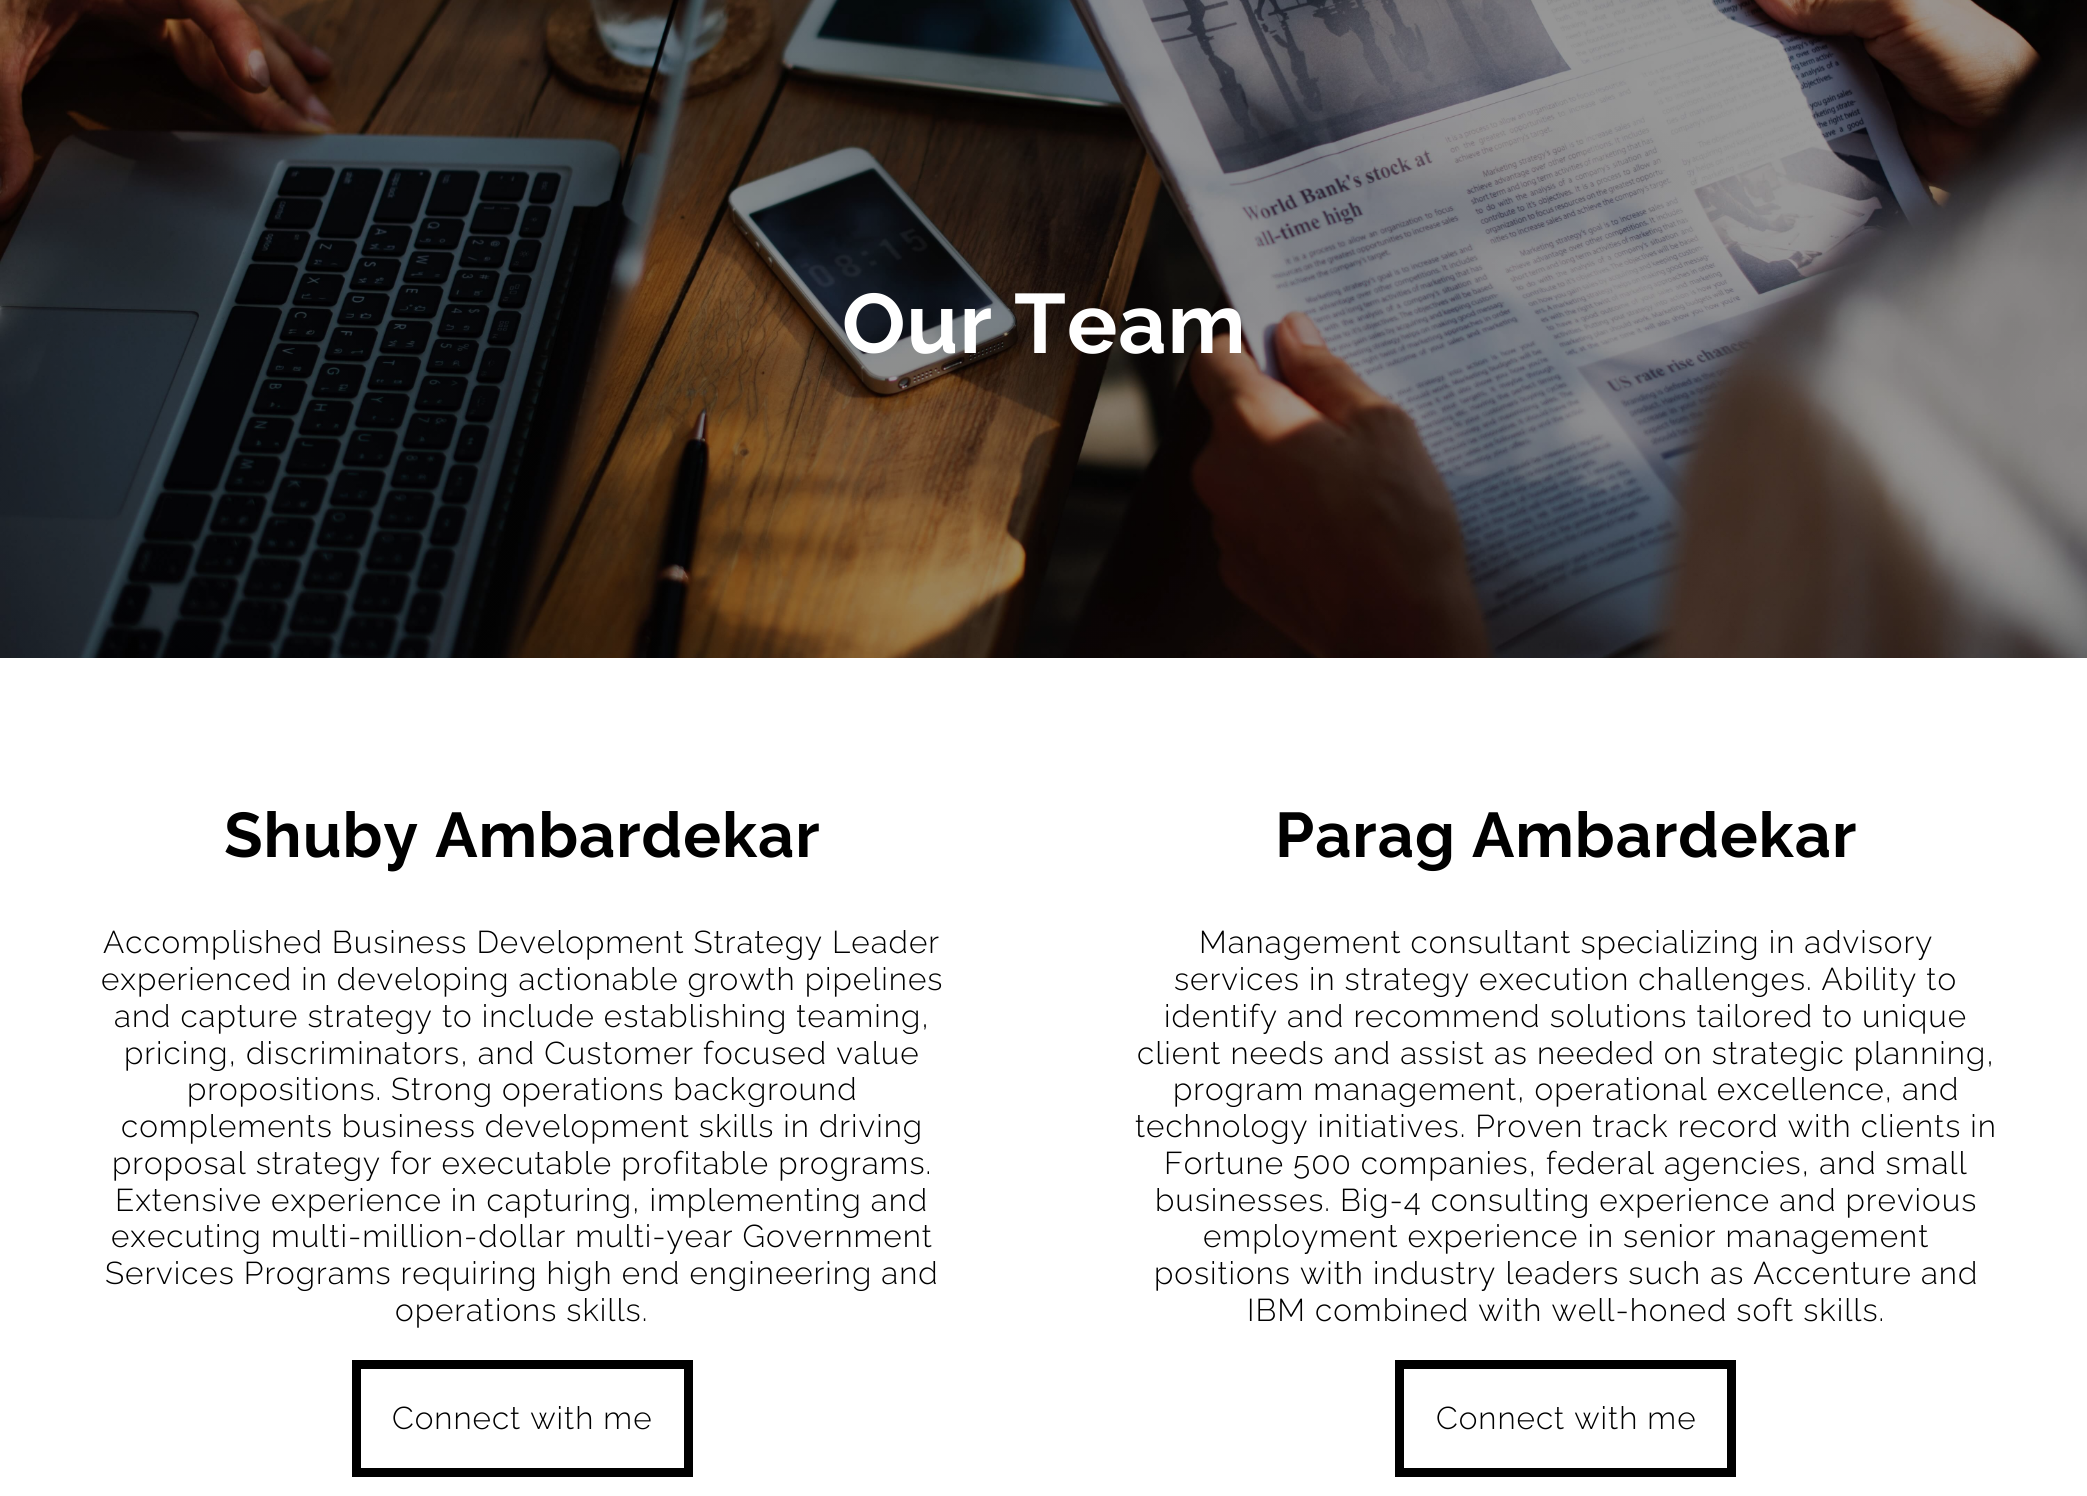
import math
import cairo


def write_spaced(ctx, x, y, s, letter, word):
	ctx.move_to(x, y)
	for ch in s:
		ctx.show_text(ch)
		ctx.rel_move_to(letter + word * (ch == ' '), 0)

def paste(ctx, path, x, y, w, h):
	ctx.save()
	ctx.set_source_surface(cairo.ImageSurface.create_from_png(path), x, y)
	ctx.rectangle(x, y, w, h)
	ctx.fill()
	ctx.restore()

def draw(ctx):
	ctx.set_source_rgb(1, 1, 1)
	ctx.paint()
	paste(ctx, 'media/1.png', 0, 0, 2087, 658)
	ctx.select_font_face('Raleway', cairo.FONT_SLANT_NORMAL, cairo.FONT_WEIGHT_BOLD)
	ctx.set_font_size(84)
	ctx.set_source_rgb(1, 1, 1)
	write_spaced(ctx, 842, 353, 'Our Team', 0.98, 0)
	ctx.set_font_size(63)
	ctx.set_source_rgb(0, 0, 0)
	write_spaced(ctx, 224, 857, 'Shuby Ambardekar', 0.98, 0)
	ctx.select_font_face('Raleway Light')
	ctx.set_font_size(31.5)
	for x, y, s in [
		(103, 953, 'Accomplished Business Development Strategy Leader'),
		(101, 990, 'experienced in developing actionable growth pipelines'),
		(114, 1027, 'and capture strategy to include establishing teaming,'),
		(124, 1064, 'pricing, discriminators, and Customer focused value'),
		(187, 1100, 'propositions. Strong operations background'),
		(121, 1137, 'complements business development skills in driving'),
		(112, 1174, 'proposal strategy for executable profitable programs.'),
		(115, 1211, 'Extensive experience in capturing, implementing and'),
		(111, 1247, 'executing multi-million-dollar multi-year Government'),
		(105, 1284, 'Services Programs requiring high end engineering and'),
		(395, 1321, 'operations skills.'),
	]:
		write_spaced(ctx, x, y, s, 0.98, 0)
	ctx.rectangle(356.5, 1364.5, 332, 108)
	ctx.set_line_width(9)
	ctx.stroke()
	write_spaced(ctx, 392, 1429, 'Connect with me', 0.98, 0)
	ctx.select_font_face('Raleway', cairo.FONT_SLANT_NORMAL, cairo.FONT_WEIGHT_BOLD)
	ctx.set_font_size(63)
	write_spaced(ctx, 1275, 857, 'Parag Ambardekar', 0.98, 0)
	ctx.select_font_face('Raleway Light')
	ctx.set_font_size(31.5)
	for x, y, s in [
		(1199, 953, 'Management consultant specializing in advisory'),
		(1174, 990, 'services in strategy execution challenges. Ability to'),
		(1164, 1027, 'identify and recommend solutions tailored to unique'),
		(1137, 1064, 'client needs and assist as needed on strategic planning,'),
		(1173, 1100, 'program management, operational excellence, and'),
		(1135, 1137, 'technology initiatives. Proven track record with clients in'),
		(1164, 1174, 'Fortune 500 companies, federal agencies, and small'),
		(1155, 1211, 'businesses. Big-4 consulting experience and previous'),
		(1203, 1247, 'employment experience in senior management'),
		(1154, 1284, 'positions with industry leaders such as Accenture and'),
		(1247, 1321, 'IBM combined with well-honed soft skills.'),
	]:
		write_spaced(ctx, x, y, s, 0.98, 0)
	ctx.rectangle(1399.5, 1364.5, 332, 108)
	ctx.stroke()
	write_spaced(ctx, 1436, 1429, 'Connect with me', 0.98, 0)


surface = cairo.ImageSurface(cairo.FORMAT_RGB24, 2087, 1496)
ctx = cairo.Context(surface)
options = cairo.FontOptions()
options.set_hint_metrics(cairo.HINT_METRICS_OFF)
options.set_hint_style(cairo.HINT_STYLE_NONE)
ctx.set_font_options(options)
ctx.set_miter_limit(4)
draw(ctx)
surface.write_to_png('image.png')
